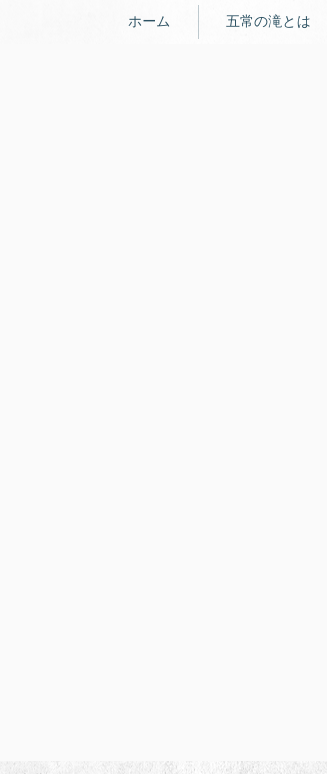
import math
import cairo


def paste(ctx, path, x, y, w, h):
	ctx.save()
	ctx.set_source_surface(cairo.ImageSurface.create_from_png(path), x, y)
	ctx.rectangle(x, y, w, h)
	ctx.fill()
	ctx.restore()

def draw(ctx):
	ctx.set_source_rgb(1, 1, 1)
	ctx.paint()
	paste(ctx, 'media/1.png', 0, 0, 327, 774)
	ctx.set_source_rgba(1, 1, 1, 0.8)
	ctx.rectangle(0, 0, 327, 44)
	ctx.fill()
	ctx.select_font_face('WenQuanYi Zen Hei Medium')
	ctx.set_font_size(14)
	ctx.set_source_rgb(0.173, 0.318, 0.384)
	ctx.move_to(128, 26)
	ctx.show_text('ホーム')
	ctx.set_source_rgba(0.173, 0.318, 0.384, 0.3)
	ctx.rectangle(198, 5, 1, 34)
	ctx.fill()
	ctx.set_source_rgb(0.173, 0.318, 0.384)
	ctx.move_to(226, 26)
	ctx.show_text('五常の滝とは')
	ctx.set_source_rgb(0.98, 0.98, 0.98)
	ctx.rectangle(0, 44, 327, 717)
	ctx.fill()


surface = cairo.ImageSurface(cairo.FORMAT_RGB24, 327, 774)
ctx = cairo.Context(surface)
options = cairo.FontOptions()
options.set_hint_metrics(cairo.HINT_METRICS_OFF)
options.set_hint_style(cairo.HINT_STYLE_NONE)
ctx.set_font_options(options)
ctx.set_miter_limit(4)
draw(ctx)
surface.write_to_png('image.png')
